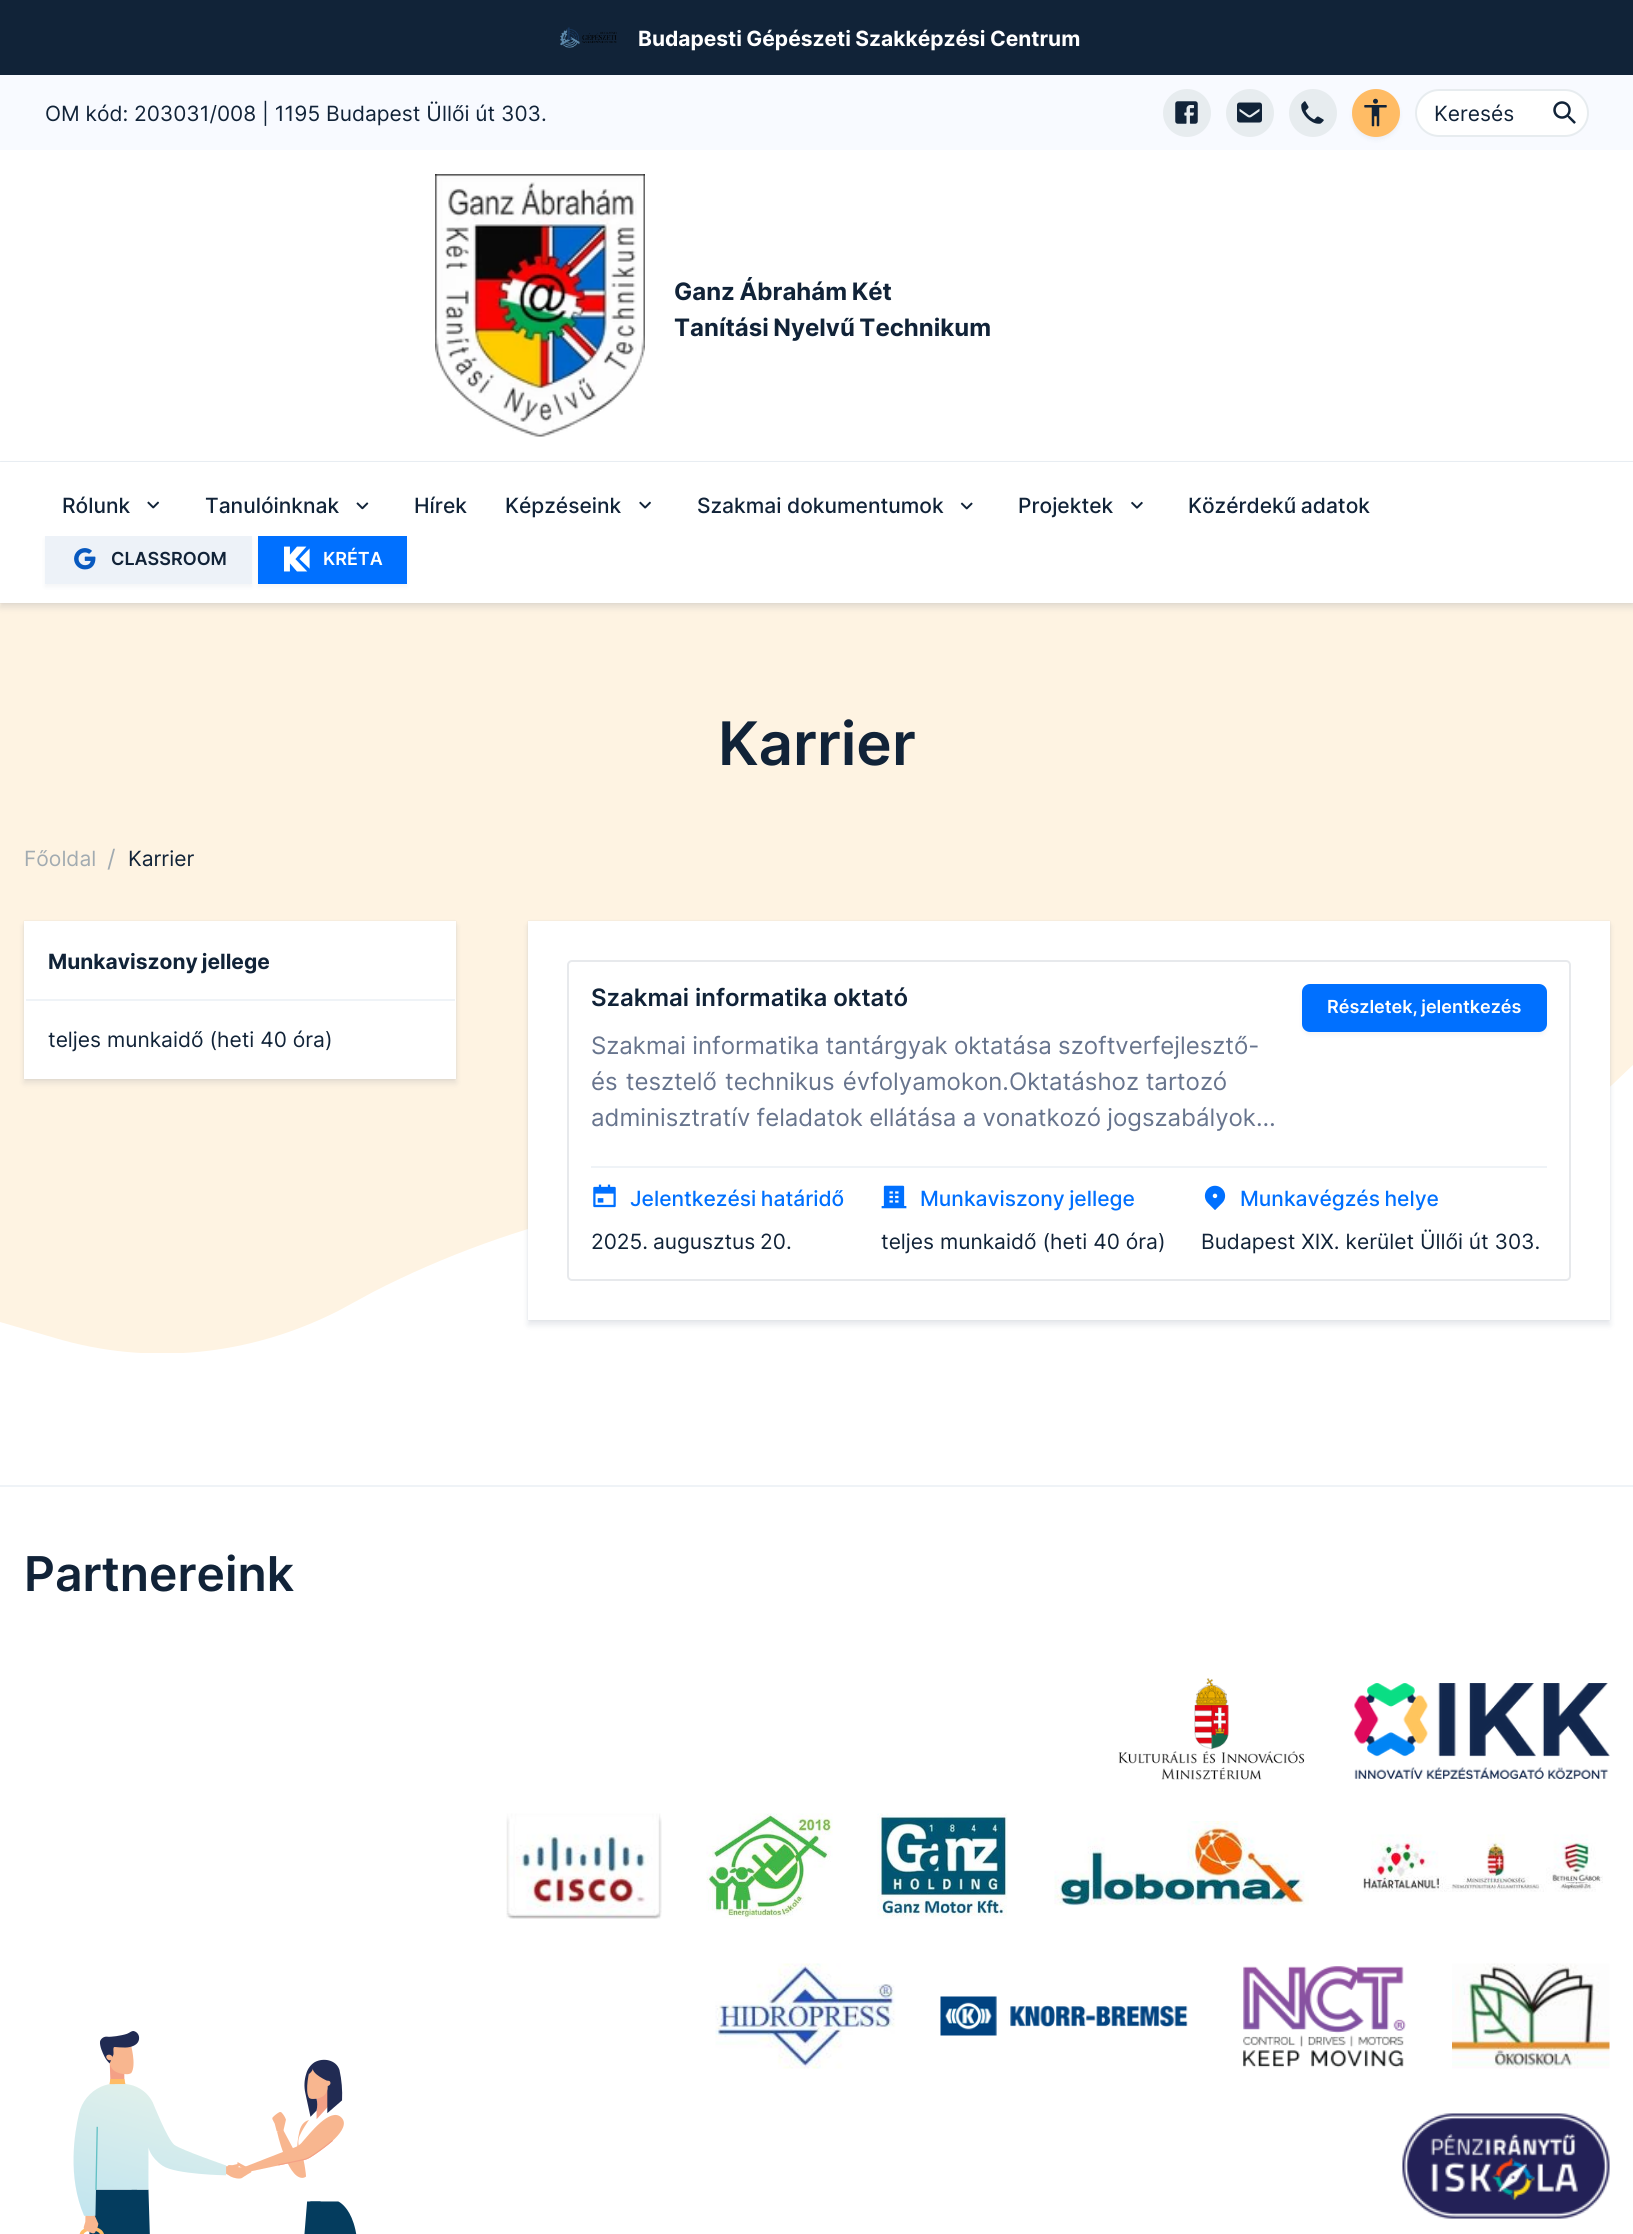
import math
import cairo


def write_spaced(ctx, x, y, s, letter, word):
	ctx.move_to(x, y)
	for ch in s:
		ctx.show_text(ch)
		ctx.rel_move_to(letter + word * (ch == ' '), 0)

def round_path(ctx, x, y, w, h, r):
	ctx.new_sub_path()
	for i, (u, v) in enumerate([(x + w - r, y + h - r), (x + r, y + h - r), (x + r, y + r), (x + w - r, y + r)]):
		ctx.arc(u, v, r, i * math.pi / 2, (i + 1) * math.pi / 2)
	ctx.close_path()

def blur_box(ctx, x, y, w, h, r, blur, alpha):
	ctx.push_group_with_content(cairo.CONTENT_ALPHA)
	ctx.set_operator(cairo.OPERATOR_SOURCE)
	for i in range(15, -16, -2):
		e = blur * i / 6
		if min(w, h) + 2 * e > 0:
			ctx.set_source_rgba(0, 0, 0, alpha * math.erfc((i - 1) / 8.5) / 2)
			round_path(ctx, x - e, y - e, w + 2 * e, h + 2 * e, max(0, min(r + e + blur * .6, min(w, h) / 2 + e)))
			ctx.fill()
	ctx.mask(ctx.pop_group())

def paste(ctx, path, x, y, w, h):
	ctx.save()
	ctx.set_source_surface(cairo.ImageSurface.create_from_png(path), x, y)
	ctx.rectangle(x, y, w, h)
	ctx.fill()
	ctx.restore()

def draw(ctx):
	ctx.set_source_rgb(1, 1, 1)
	ctx.paint()
	ctx.set_source_rgb(0.067, 0.137, 0.22)
	ctx.rectangle(0, 0, 1633, 75)
	ctx.fill()
	paste(ctx, 'media/1.png', 560, 27, 57, 21)
	ctx.select_font_face('Inter', cairo.FONT_SLANT_NORMAL, cairo.FONT_WEIGHT_BOLD)
	ctx.set_font_size(21)
	ctx.set_source_rgb(1, 1, 1)
	write_spaced(ctx, 638, 46, 'Budapesti Gépészeti Szakképzési Centrum', 0, -0.5)
	ctx.set_source_rgb(0.969, 0.98, 1)
	ctx.rectangle(0, 75, 1633, 75)
	ctx.fill()
	ctx.select_font_face('Inter')
	ctx.set_source_rgb(0.067, 0.137, 0.22)
	ctx.move_to(45, 121)
	ctx.show_text('OM kód:')
	ctx.move_to(134, 121)
	ctx.show_text('203031/008 | 1195 Budapest Üllői út 303.')
	ctx.set_source_rgb(0.906, 0.922, 0.937)
	ctx.new_path()
	ctx.arc(1187, 113, 24, 0, 2 * math.pi)
	ctx.fill()
	paste(ctx, 'media/2.png', 1175, 101, 23, 23)
	ctx.arc(1250, 113, 24, 0, 2 * math.pi)
	ctx.fill()
	paste(ctx, 'media/3.png', 1237, 102, 25, 21)
	ctx.arc(1313, 113, 24, 0, 2 * math.pi)
	ctx.fill()
	paste(ctx, 'media/4.png', 1301, 101, 23, 23)
	ctx.set_source_rgb(0.078, 0.196, 0.314)
	blur_box(ctx, 1352, 92, 48, 48, 24, 2, 0.05)
	ctx.set_source_rgb(1, 0.737, 0.396)
	ctx.arc(1376, 113, 24, 0, 2 * math.pi)
	ctx.fill()
	paste(ctx, 'media/5.png', 1364, 98, 23, 29)
	ctx.set_source_rgb(1, 1, 1)
	round_path(ctx, 1416, 90, 172, 46, 23)
	ctx.fill_preserve()
	ctx.set_source_rgb(0.906, 0.922, 0.937)
	ctx.stroke()
	ctx.set_source_rgb(0.067, 0.137, 0.22)
	ctx.move_to(1434, 121)
	ctx.show_text('Keresés')
	paste(ctx, 'media/6.png', 1553, 101, 23, 23)
	ctx.set_source_rgb(0.937, 0.953, 0.965)
	ctx.rectangle(0, 461, 1633, 1)
	ctx.fill()
	paste(ctx, 'media/7.png', 435, 174, 210, 263)
	ctx.select_font_face('Inter', cairo.FONT_SLANT_NORMAL, cairo.FONT_WEIGHT_BOLD)
	ctx.set_font_size(24)
	ctx.set_source_rgb(0.067, 0.137, 0.22)
	write_spaced(ctx, 674, 300, 'Ganz Ábrahám Két', 0, -1)
	write_spaced(ctx, 674, 336, 'Tanítási Nyelvű Technikum', 0, -1)
	ctx.save()
	ctx.rectangle(0, 603, 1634, 750)
	ctx.clip()
	ctx.set_source_rgb(0.996, 0.953, 0.886)
	ctx.new_path()
	ctx.move_to(0, 1322)
	ctx.line_to(0, 603)
	ctx.line_to(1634, 603)
	ctx.line_to(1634, 1064)
	ctx.line_to(1613, 1084)
	ctx.curve_to(1532, 1160, 1427, 1196, 1322, 1185)
	ctx.line_to(1178, 1169)
	ctx.curve_to(1001, 1149, 822, 1159, 648, 1199)
	ctx.curve_to(615, 1206, 661, 1196, 598, 1210)
	ctx.curve_to(521, 1228, 445, 1255, 373, 1292)
	ctx.line_to(338, 1311)
	ctx.curve_to(249, 1356, 149, 1366, 55, 1338)
	ctx.close_path()
	ctx.fill()
	ctx.restore()
	ctx.set_source_rgb(0.039, 0.122, 0.267)
	blur_box(ctx, 0, 462, 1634, 141, 0, 1, 0.08)
	blur_box(ctx, 0, 467, 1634, 141, 0, 3, 0.1)
	ctx.set_source_rgb(1, 1, 1)
	ctx.rectangle(0, 462, 1633, 141)
	ctx.fill()
	ctx.select_font_face('Inter Medium')
	ctx.set_font_size(21)
	ctx.set_source_rgb(0.067, 0.137, 0.22)
	ctx.move_to(62, 513)
	ctx.show_text('Rólunk')
	paste(ctx, 'media/8.png', 147, 501, 13, 8)
	ctx.move_to(205, 513)
	ctx.show_text('Tanulóinknak')
	paste(ctx, 'media/9.png', 356, 502, 13, 8)
	ctx.move_to(414, 513)
	ctx.show_text('Hírek')
	ctx.move_to(505, 513)
	ctx.show_text('Képzéseink')
	paste(ctx, 'media/10.png', 639, 501, 12, 8)
	ctx.move_to(697, 513)
	ctx.show_text('Szakmai dokumentumok')
	paste(ctx, 'media/11.png', 960, 502, 13, 8)
	ctx.move_to(1018, 513)
	ctx.show_text('Projektek')
	paste(ctx, 'media/12.png', 1131, 501, 12, 8)
	write_spaced(ctx, 1188, 513, 'Közérdekű adatok', 0, -1)
	ctx.set_source_rgb(0.078, 0.196, 0.314)
	blur_box(ctx, 45, 539, 207, 48, 0, 2, 0.05)
	ctx.set_source_rgb(0.929, 0.949, 0.969)
	ctx.rectangle(45, 536, 207, 48)
	ctx.fill()
	paste(ctx, 'media/13.png', 74, 548, 22, 22)
	ctx.select_font_face('Inter SemiBold')
	ctx.set_font_size(18)
	ctx.set_source_rgb(0.067, 0.137, 0.22)
	ctx.move_to(111, 565)
	ctx.show_text('CLASSROOM')
	ctx.set_source_rgb(0.078, 0.196, 0.314)
	blur_box(ctx, 258, 539, 149, 48, 0, 2, 0.05)
	ctx.set_source_rgb(0, 0.439, 1)
	ctx.rectangle(258, 536, 149, 48)
	ctx.fill()
	paste(ctx, 'media/14.png', 284, 546, 26, 26)
	ctx.set_source_rgb(1, 1, 1)
	ctx.move_to(323, 565)
	ctx.show_text('KRÉTA')
	ctx.set_font_size(60)
	ctx.set_source_rgb(0.067, 0.137, 0.22)
	ctx.move_to(718, 765)
	ctx.show_text('Karrier')
	ctx.select_font_face('Inter')
	ctx.set_font_size(21)
	ctx.set_source_rgb(0.635, 0.671, 0.694)
	ctx.move_to(24, 866)
	ctx.show_text('Főoldal')
	ctx.set_font_size(24)
	ctx.move_to(107, 867)
	ctx.show_text('/')
	ctx.set_font_size(21)
	ctx.set_source_rgb(0.067, 0.137, 0.22)
	ctx.move_to(128, 866)
	ctx.show_text('Karrier')
	ctx.set_source_rgb(0.039, 0.122, 0.267)
	blur_box(ctx, 24, 921, 432, 158, 0, 1, 0.08)
	blur_box(ctx, 24, 926, 432, 157, 0, 3, 0.1)
	ctx.set_source_rgb(1, 1, 1)
	ctx.rectangle(24, 921, 432, 158)
	ctx.fill()
	ctx.select_font_face('Inter', cairo.FONT_SLANT_NORMAL, cairo.FONT_WEIGHT_BOLD)
	ctx.set_source_rgb(0.067, 0.137, 0.22)
	write_spaced(ctx, 48, 969, 'Munkaviszony jellege', 0, -1)
	ctx.set_source_rgb(0.937, 0.953, 0.965)
	ctx.rectangle(26, 999, 429, 2)
	ctx.fill()
	ctx.select_font_face('Inter')
	ctx.set_source_rgb(0.067, 0.137, 0.22)
	ctx.move_to(48, 1047)
	ctx.show_text('teljes munkaidő (heti 40 óra)')
	ctx.set_source_rgb(0.039, 0.122, 0.267)
	blur_box(ctx, 528, 921, 1082, 399, 0, 1, 0.08)
	blur_box(ctx, 528, 926, 1082, 399, 0, 3, 0.1)
	ctx.set_source_rgb(1, 1, 1)
	ctx.rectangle(528, 921, 1082, 399)
	ctx.fill()
	round_path(ctx, 568, 961, 1002, 319, 4)
	ctx.set_source_rgb(0.906, 0.914, 0.922)
	ctx.stroke()
	ctx.select_font_face('Inter SemiBold')
	ctx.set_font_size(24)
	ctx.set_source_rgb(0.067, 0.137, 0.22)
	ctx.move_to(591, 1006)
	ctx.show_text('Szakmai informatika oktató')
	ctx.select_font_face('Inter')
	ctx.set_source_rgb(0.404, 0.455, 0.553)
	write_spaced(ctx, 591, 1054, 'Szakmai informatika tantárgyak oktatása szoftverfejlesztő-', 0, -0.5)
	write_spaced(ctx, 591, 1090, 'és tesztelő technikus évfolyamokon.', 0, 1.5)
	ctx.move_to(1009, 1090)
	ctx.show_text('Oktatáshoz tartozó')
	write_spaced(ctx, 591, 1126, 'adminisztratív feladatok ellátása a vonatkozó jogszabályok…', 0, -0.5)
	ctx.set_source_rgb(0.078, 0.196, 0.314)
	blur_box(ctx, 1302, 987, 245, 48, 8, 2, 0.05)
	ctx.set_source_rgb(0, 0.439, 1)
	round_path(ctx, 1302, 984, 245, 48, 8)
	ctx.fill()
	ctx.select_font_face('Inter SemiBold')
	ctx.set_font_size(18)
	ctx.set_source_rgb(1, 1, 1)
	write_spaced(ctx, 1327, 1013, 'Részletek, jelentkezés', 0, -1)
	ctx.set_source_rgb(0.937, 0.953, 0.965)
	ctx.rectangle(591, 1166, 956, 2)
	ctx.fill()
	paste(ctx, 'media/15.png', 593, 1184, 23, 24)
	ctx.select_font_face('Inter Medium')
	ctx.set_font_size(21)
	ctx.set_source_rgb(0, 0.439, 1)
	write_spaced(ctx, 630, 1206, 'Jelentkezési határidő', 0, -1)
	ctx.select_font_face('Inter')
	ctx.set_source_rgb(0.067, 0.137, 0.22)
	write_spaced(ctx, 591, 1249, '2025. augusztus 20.', 0, -1)
	paste(ctx, 'media/16.png', 881, 1185, 26, 24)
	ctx.select_font_face('Inter Medium')
	ctx.set_source_rgb(0, 0.439, 1)
	write_spaced(ctx, 920, 1206, 'Munkaviszony jellege', 0, -1)
	ctx.select_font_face('Inter')
	ctx.set_source_rgb(0.067, 0.137, 0.22)
	ctx.move_to(881, 1249)
	ctx.show_text('teljes munkaidő (heti 40 óra)')
	paste(ctx, 'media/17.png', 1204, 1185, 22, 25)
	ctx.select_font_face('Inter Medium')
	ctx.set_source_rgb(0, 0.439, 1)
	write_spaced(ctx, 1240, 1206, 'Munkavégzés helye', 0, -1)
	ctx.select_font_face('Inter')
	ctx.set_source_rgb(0.067, 0.137, 0.22)
	ctx.move_to(1201, 1249)
	ctx.show_text('Budapest XIX. kerület Üllői út 303.')
	ctx.set_source_rgb(0.937, 0.953, 0.965)
	ctx.rectangle(0, 1485, 1633, 2)
	ctx.fill()
	ctx.select_font_face('Inter SemiBold')
	ctx.set_font_size(48)
	ctx.set_source_rgb(0.067, 0.137, 0.22)
	ctx.move_to(24, 1591)
	ctx.show_text('Partnereink')
	paste(ctx, 'media/18.png', 73, 2031, 284, 203)
	paste(ctx, 'media/19.png', 1118, 1678, 187, 102)
	paste(ctx, 'media/20.png', 1354, 1683, 256, 96)
	paste(ctx, 'media/21.png', 506, 1813, 156, 106)
	paste(ctx, 'media/22.png', 706, 1813, 127, 106)
	paste(ctx, 'media/23.png', 877, 1813, 131, 106)
	paste(ctx, 'media/24.png', 1054, 1821, 255, 85)
	paste(ctx, 'media/25.png', 1363, 1834, 240, 58)
	paste(ctx, 'media/26.png', 715, 1963, 181, 106)
	paste(ctx, 'media/27.png', 940, 1996, 248, 40)
	paste(ctx, 'media/28.png', 1243, 1966, 163, 102)
	paste(ctx, 'media/29.png', 1452, 1963, 158, 106)
	paste(ctx, 'media/30.png', 1402, 2113, 208, 106)


surface = cairo.ImageSurface(cairo.FORMAT_RGB24, 1633, 2234)
ctx = cairo.Context(surface)
options = cairo.FontOptions()
options.set_hint_metrics(cairo.HINT_METRICS_OFF)
options.set_hint_style(cairo.HINT_STYLE_NONE)
ctx.set_font_options(options)
ctx.set_miter_limit(4)
draw(ctx)
surface.write_to_png('image.png')
